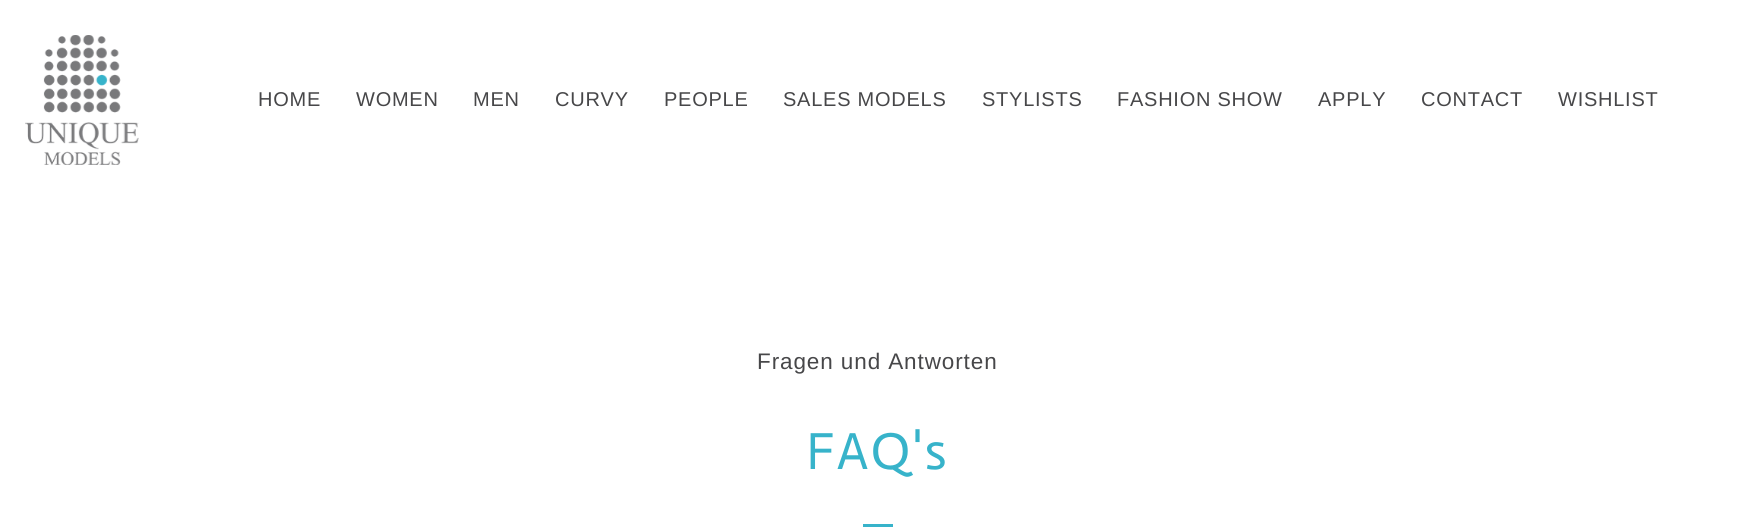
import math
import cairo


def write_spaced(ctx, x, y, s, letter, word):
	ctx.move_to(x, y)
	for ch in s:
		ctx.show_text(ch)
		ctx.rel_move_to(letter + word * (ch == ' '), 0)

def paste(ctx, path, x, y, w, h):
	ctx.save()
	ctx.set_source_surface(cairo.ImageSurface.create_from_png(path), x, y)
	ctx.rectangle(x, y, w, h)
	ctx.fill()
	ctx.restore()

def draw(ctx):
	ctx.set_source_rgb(1, 1, 1)
	ctx.paint()
	paste(ctx, 'media/1.png', 25, 35, 114, 130)
	ctx.select_font_face('Liberation Sans')
	ctx.set_font_size(20)
	ctx.set_source_rgb(0.278, 0.278, 0.286)
	for x, y, s in [
		(258, 106, 'HOME'),
		(356, 106, 'WOMEN'),
		(473, 106, 'MEN'),
		(555, 106, 'CURVY'),
		(664, 106, 'PEOPLE'),
		(783, 106, 'SALES MODELS'),
		(982, 106, 'STYLISTS'),
		(1117, 106, 'FASHION SHOW'),
		(1318, 106, 'APPLY'),
		(1421, 106, 'CONTACT'),
		(1558, 106, 'WISHLIST'),
	]:
		write_spaced(ctx, x, y, s, 0.75, 0)
	ctx.set_font_size(22.5)
	write_spaced(ctx, 757, 369, 'Fragen und Antworten', 0.9, 0)
	ctx.select_font_face('Actor')
	ctx.set_font_size(52.5)
	ctx.set_source_rgb(0.216, 0.702, 0.792)
	write_spaced(ctx, 806, 469, 'FAQ\'s', 2, 0)
	ctx.rectangle(863, 524, 30, 3)
	ctx.fill()


surface = cairo.ImageSurface(cairo.FORMAT_RGB24, 1755, 528)
ctx = cairo.Context(surface)
options = cairo.FontOptions()
options.set_hint_metrics(cairo.HINT_METRICS_OFF)
options.set_hint_style(cairo.HINT_STYLE_NONE)
ctx.set_font_options(options)
ctx.set_miter_limit(4)
draw(ctx)
surface.write_to_png('image.png')
